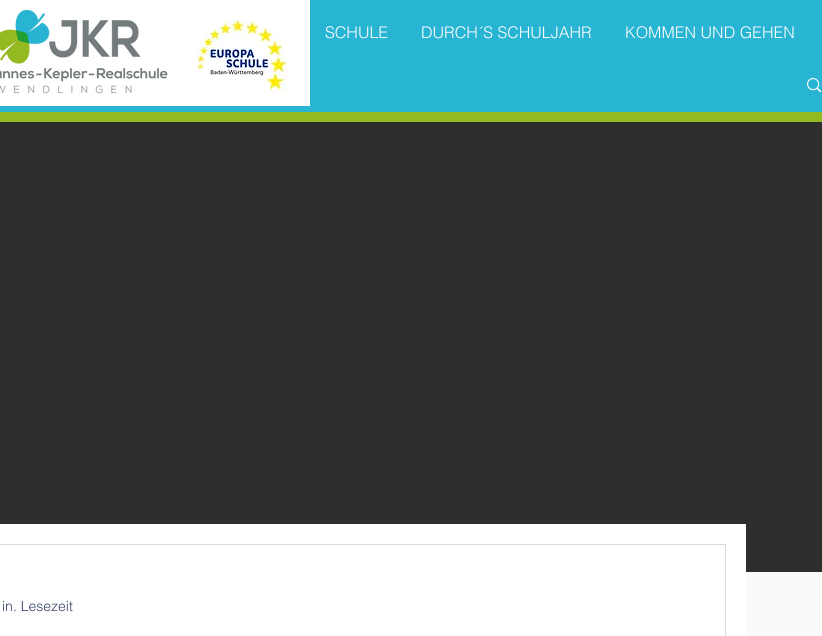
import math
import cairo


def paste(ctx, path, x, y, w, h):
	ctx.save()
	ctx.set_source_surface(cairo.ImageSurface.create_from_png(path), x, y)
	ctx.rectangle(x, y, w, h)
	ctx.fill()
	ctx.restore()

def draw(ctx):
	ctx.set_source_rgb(0.98, 0.98, 0.98)
	ctx.paint()
	ctx.set_source_rgb(0.157, 0.706, 0.827)
	ctx.rectangle(0, 0, 822, 112)
	ctx.fill()
	ctx.set_source_rgb(1, 1, 1)
	ctx.rectangle(0, 0, 310, 106)
	ctx.fill()
	paste(ctx, 'media/1.png', 0, 10, 168, 84)
	paste(ctx, 'media/2.png', 197, 20, 90, 73)
	ctx.select_font_face('helvetica Light')
	ctx.set_font_size(16)
	for x, y, s in [
		(325, 38, 'SCHULE'),
		(421, 38, 'DURCH´S SCHULJAHR'),
		(625, 38, 'KOMMEN UND GEHEN'),
	]:
		ctx.move_to(x, y)
		ctx.show_text(s)
	paste(ctx, 'media/3.png', 807, 78, 14, 14)
	ctx.set_source_rgb(0.584, 0.729, 0.129)
	ctx.rectangle(0, 112, 822, 10)
	ctx.fill()
	ctx.set_source_rgb(0.184, 0.18, 0.18)
	ctx.rectangle(0, 122, 822, 450)
	ctx.fill()
	ctx.set_source_rgb(1, 1, 1)
	ctx.rectangle(0, 524, 746, 112)
	ctx.fill()
	ctx.rectangle(-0.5, 544.5, 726, 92)
	ctx.set_source_rgb(0.851, 0.851, 0.851)
	ctx.set_line_width(1)
	ctx.stroke()
	ctx.set_font_size(14)
	ctx.set_source_rgb(0.204, 0.247, 0.392)
	ctx.move_to(2, 611)
	ctx.show_text('in. Lesezeit')


surface = cairo.ImageSurface(cairo.FORMAT_RGB24, 822, 636)
ctx = cairo.Context(surface)
options = cairo.FontOptions()
options.set_hint_metrics(cairo.HINT_METRICS_OFF)
options.set_hint_style(cairo.HINT_STYLE_NONE)
ctx.set_font_options(options)
ctx.set_miter_limit(4)
draw(ctx)
surface.write_to_png('image.png')
